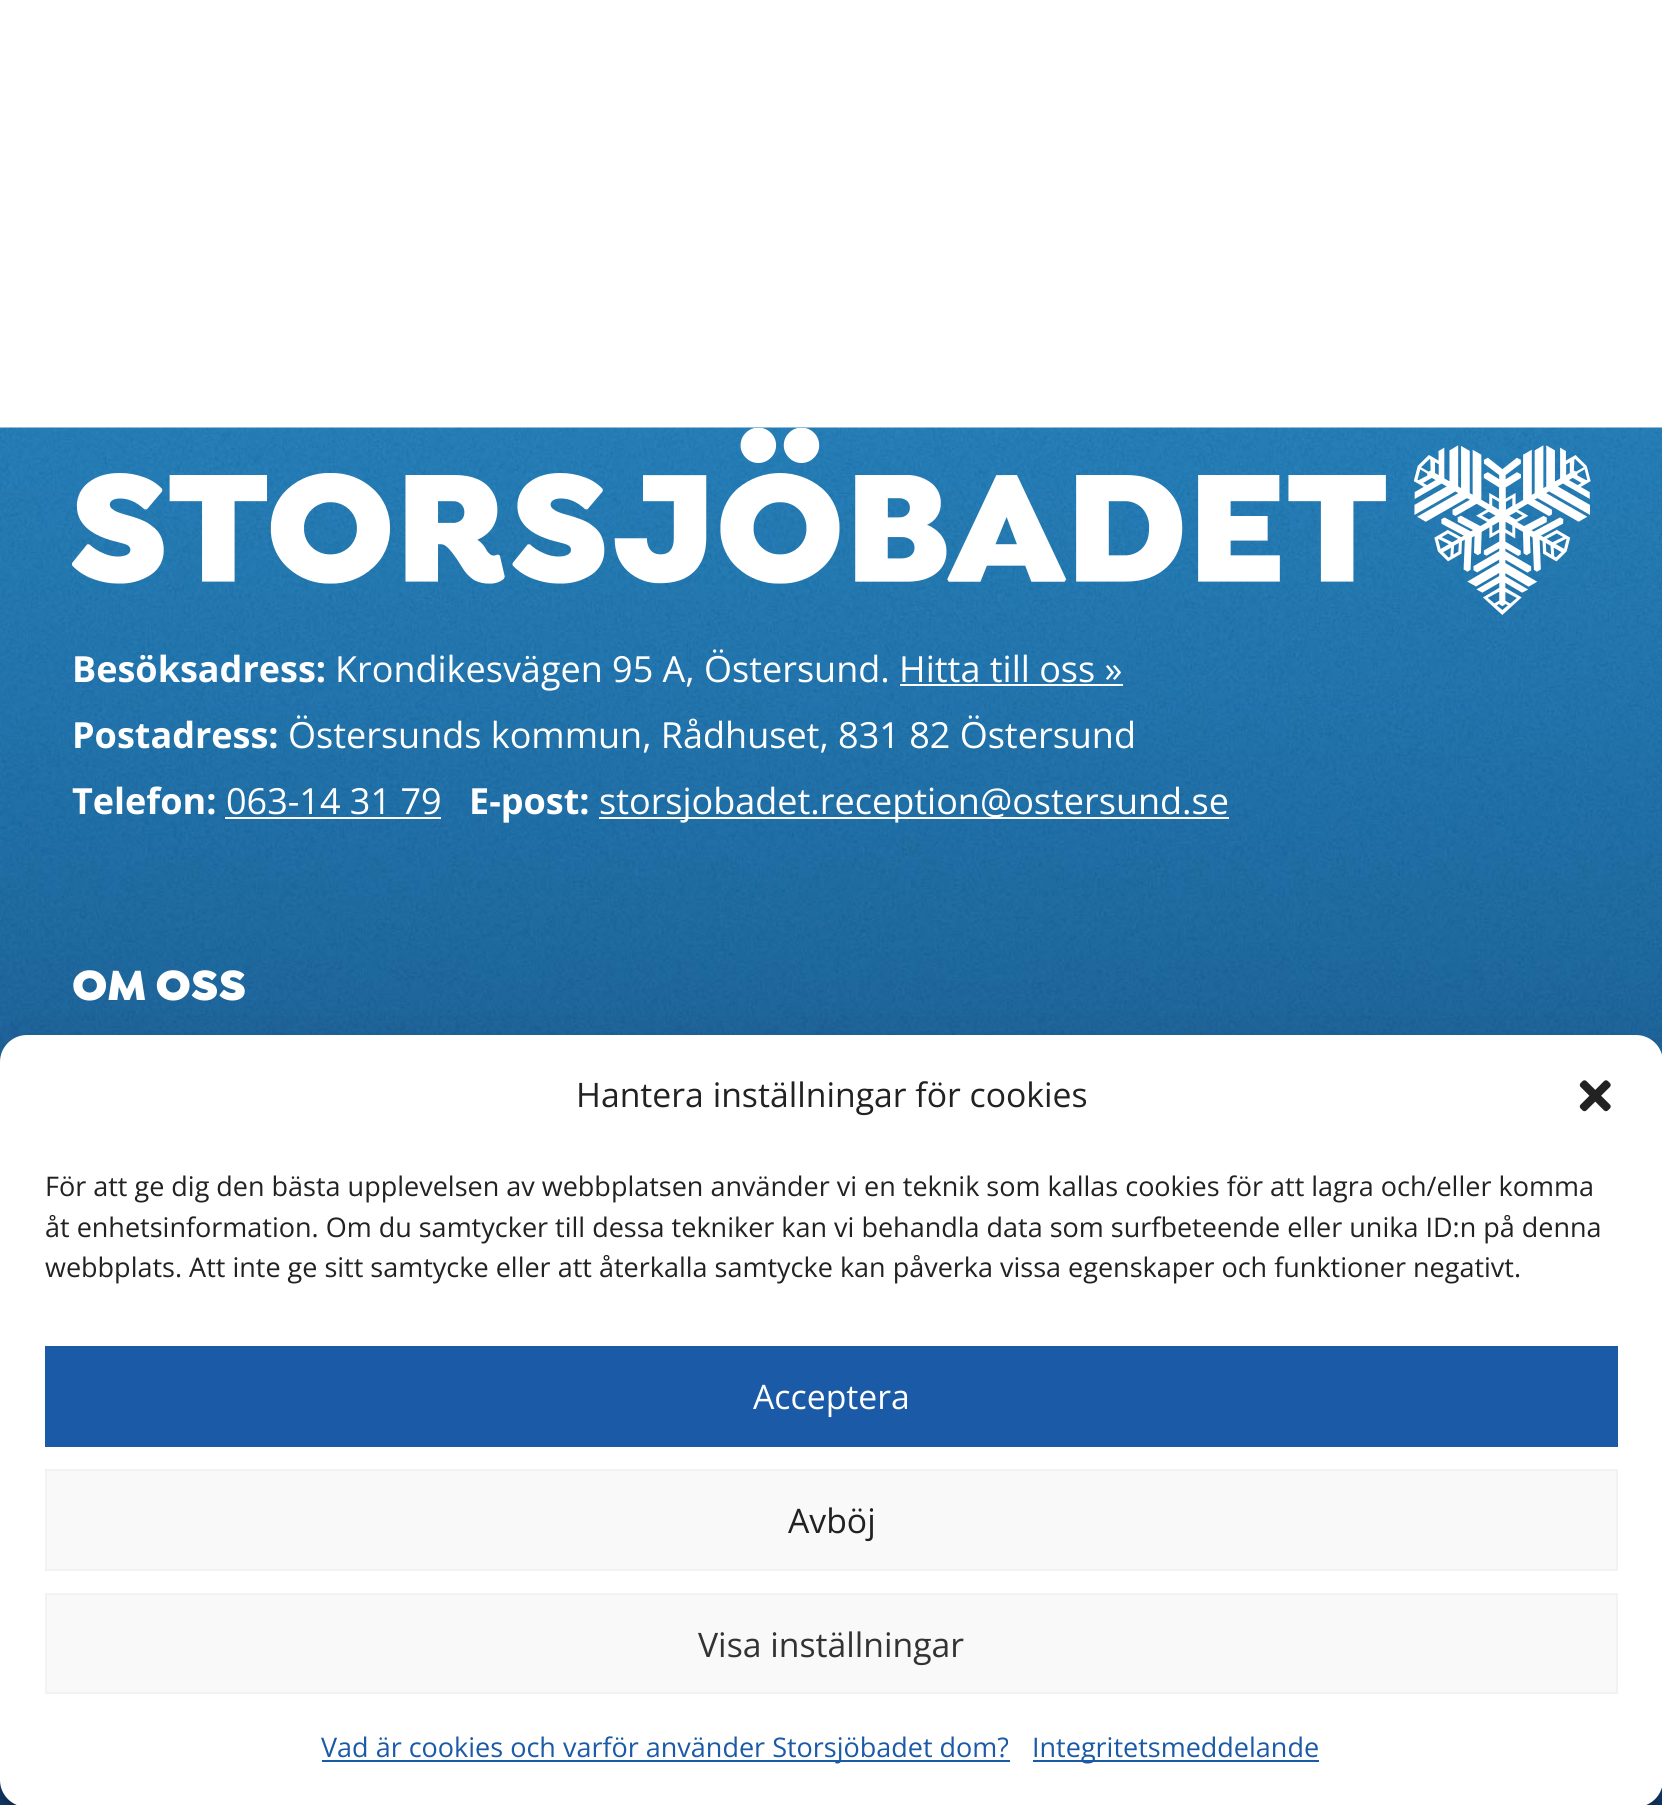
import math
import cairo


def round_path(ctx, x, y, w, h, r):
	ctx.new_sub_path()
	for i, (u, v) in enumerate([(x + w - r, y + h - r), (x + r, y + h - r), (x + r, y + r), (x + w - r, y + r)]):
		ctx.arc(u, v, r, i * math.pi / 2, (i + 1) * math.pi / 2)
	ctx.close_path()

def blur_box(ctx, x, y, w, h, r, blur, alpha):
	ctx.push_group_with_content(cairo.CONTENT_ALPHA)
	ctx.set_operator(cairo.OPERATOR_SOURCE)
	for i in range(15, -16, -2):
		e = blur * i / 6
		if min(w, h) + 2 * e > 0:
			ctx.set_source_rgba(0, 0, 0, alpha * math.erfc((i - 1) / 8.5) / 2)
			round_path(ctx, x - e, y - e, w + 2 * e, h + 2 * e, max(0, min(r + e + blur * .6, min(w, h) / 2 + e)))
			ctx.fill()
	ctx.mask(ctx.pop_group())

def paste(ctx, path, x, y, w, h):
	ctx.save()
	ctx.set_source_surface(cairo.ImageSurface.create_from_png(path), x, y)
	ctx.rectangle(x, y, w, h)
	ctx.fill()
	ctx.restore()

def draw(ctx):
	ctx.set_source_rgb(1, 1, 1)
	ctx.paint()
	paste(ctx, 'media/1.png', 0, 427, 1662, 1378)
	paste(ctx, 'media/2.png', 72, 428, 1519, 187)
	ctx.select_font_face('Open Sans', cairo.FONT_SLANT_NORMAL, cairo.FONT_WEIGHT_BOLD)
	ctx.set_font_size(36)
	ctx.set_source_rgb(1, 1, 1)
	ctx.move_to(72, 682)
	ctx.show_text('Besöksadress:')
	ctx.select_font_face('Open Sans')
	ctx.move_to(335, 682)
	ctx.show_text('Krondikesvägen 95 A, Östersund. Hitta till oss »')
	ctx.rectangle(900, 684, 223, 2)
	ctx.fill()
	ctx.select_font_face('Open Sans', cairo.FONT_SLANT_NORMAL, cairo.FONT_WEIGHT_BOLD)
	ctx.move_to(72, 748)
	ctx.show_text('Postadress:')
	ctx.select_font_face('Open Sans')
	ctx.move_to(288, 748)
	ctx.show_text('Östersunds kommun, Rådhuset, 831 82 Östersund')
	ctx.select_font_face('Open Sans', cairo.FONT_SLANT_NORMAL, cairo.FONT_WEIGHT_BOLD)
	ctx.move_to(72, 814)
	ctx.show_text('Telefon:')
	ctx.select_font_face('Open Sans')
	ctx.move_to(226, 814)
	ctx.show_text('063-14 31 79')
	ctx.rectangle(225, 817, 216, 2)
	ctx.fill()
	ctx.select_font_face('Open Sans', cairo.FONT_SLANT_NORMAL, cairo.FONT_WEIGHT_BOLD)
	ctx.move_to(469, 814)
	ctx.show_text('E-post:')
	ctx.rectangle(599, 817, 630, 2)
	ctx.fill()
	ctx.select_font_face('Open Sans')
	ctx.move_to(599, 814)
	ctx.show_text('storsjobadet.reception@ostersund.se')
	ctx.select_font_face('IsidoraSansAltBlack')
	ctx.set_font_size(45)
	ctx.move_to(72, 1000)
	ctx.show_text('OM OSS')
	ctx.set_source_rgb(0, 0, 0)
	blur_box(ctx, 0, 1049, 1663, 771, 27, 7, 0.23)
	blur_box(ctx, 0, 1058, 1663, 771, 27, 22.5, 0.19)
	ctx.set_source_rgb(1, 1, 1)
	round_path(ctx, 0, 1035, 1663, 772, 27)
	ctx.fill()
	ctx.select_font_face('Open Sans')
	ctx.set_font_size(33.75)
	ctx.set_source_rgb(0.133, 0.133, 0.133)
	ctx.move_to(576, 1107)
	ctx.show_text('Hantera inställningar för cookies')
	paste(ctx, 'media/3.png', 1579, 1080, 32, 32)
	ctx.set_font_size(27)
	for x, y, s in [
		(45, 1196, 'För att ge dig den bästa upplevelsen av webbplatsen använder vi en teknik som kallas cookies för att lagra och/eller komma'),
		(45, 1237, 'åt enhetsinformation. Om du samtycker till dessa tekniker kan vi behandla data som surfbeteende eller unika ID:n på denna'),
		(45, 1277, 'webbplats. Att inte ge sitt samtycke eller att återkalla samtycke kan påverka vissa egenskaper och funktioner negativt.'),
	]:
		ctx.move_to(x, y)
		ctx.show_text(s)
	ctx.set_source_rgb(0.102, 0.353, 0.655)
	ctx.rectangle(45, 1346, 1573, 101)
	ctx.fill()
	ctx.set_font_size(33.75)
	ctx.set_source_rgb(1, 1, 1)
	ctx.move_to(753, 1409)
	ctx.show_text('Acceptera')
	ctx.set_source_rgb(0.976, 0.976, 0.976)
	ctx.rectangle(46, 1470, 1571, 100)
	ctx.fill_preserve()
	ctx.set_source_rgb(0.949, 0.949, 0.949)
	ctx.stroke()
	ctx.set_source_rgb(0.133, 0.133, 0.133)
	ctx.move_to(788, 1533)
	ctx.show_text('Avböj')
	ctx.set_source_rgb(0.976, 0.976, 0.976)
	ctx.rectangle(46, 1594, 1571, 99)
	ctx.fill_preserve()
	ctx.set_source_rgb(0.949, 0.949, 0.949)
	ctx.stroke()
	ctx.set_source_rgb(0.2, 0.2, 0.2)
	ctx.move_to(698, 1657)
	ctx.show_text('Visa inställningar')
	ctx.set_source_rgb(0.102, 0.353, 0.655)
	ctx.rectangle(322, 1760, 688, 2)
	ctx.fill()
	ctx.set_font_size(27)
	ctx.move_to(321, 1757)
	ctx.show_text('Vad är cookies och varför använder Storsjöbadet dom?')
	ctx.rectangle(1033, 1760, 286, 2)
	ctx.fill()
	ctx.move_to(1032, 1757)
	ctx.show_text('Integritetsmeddelande')


surface = cairo.ImageSurface(cairo.FORMAT_RGB24, 1662, 1805)
ctx = cairo.Context(surface)
options = cairo.FontOptions()
options.set_hint_metrics(cairo.HINT_METRICS_OFF)
options.set_hint_style(cairo.HINT_STYLE_NONE)
ctx.set_font_options(options)
ctx.set_miter_limit(4)
draw(ctx)
surface.write_to_png('image.png')
